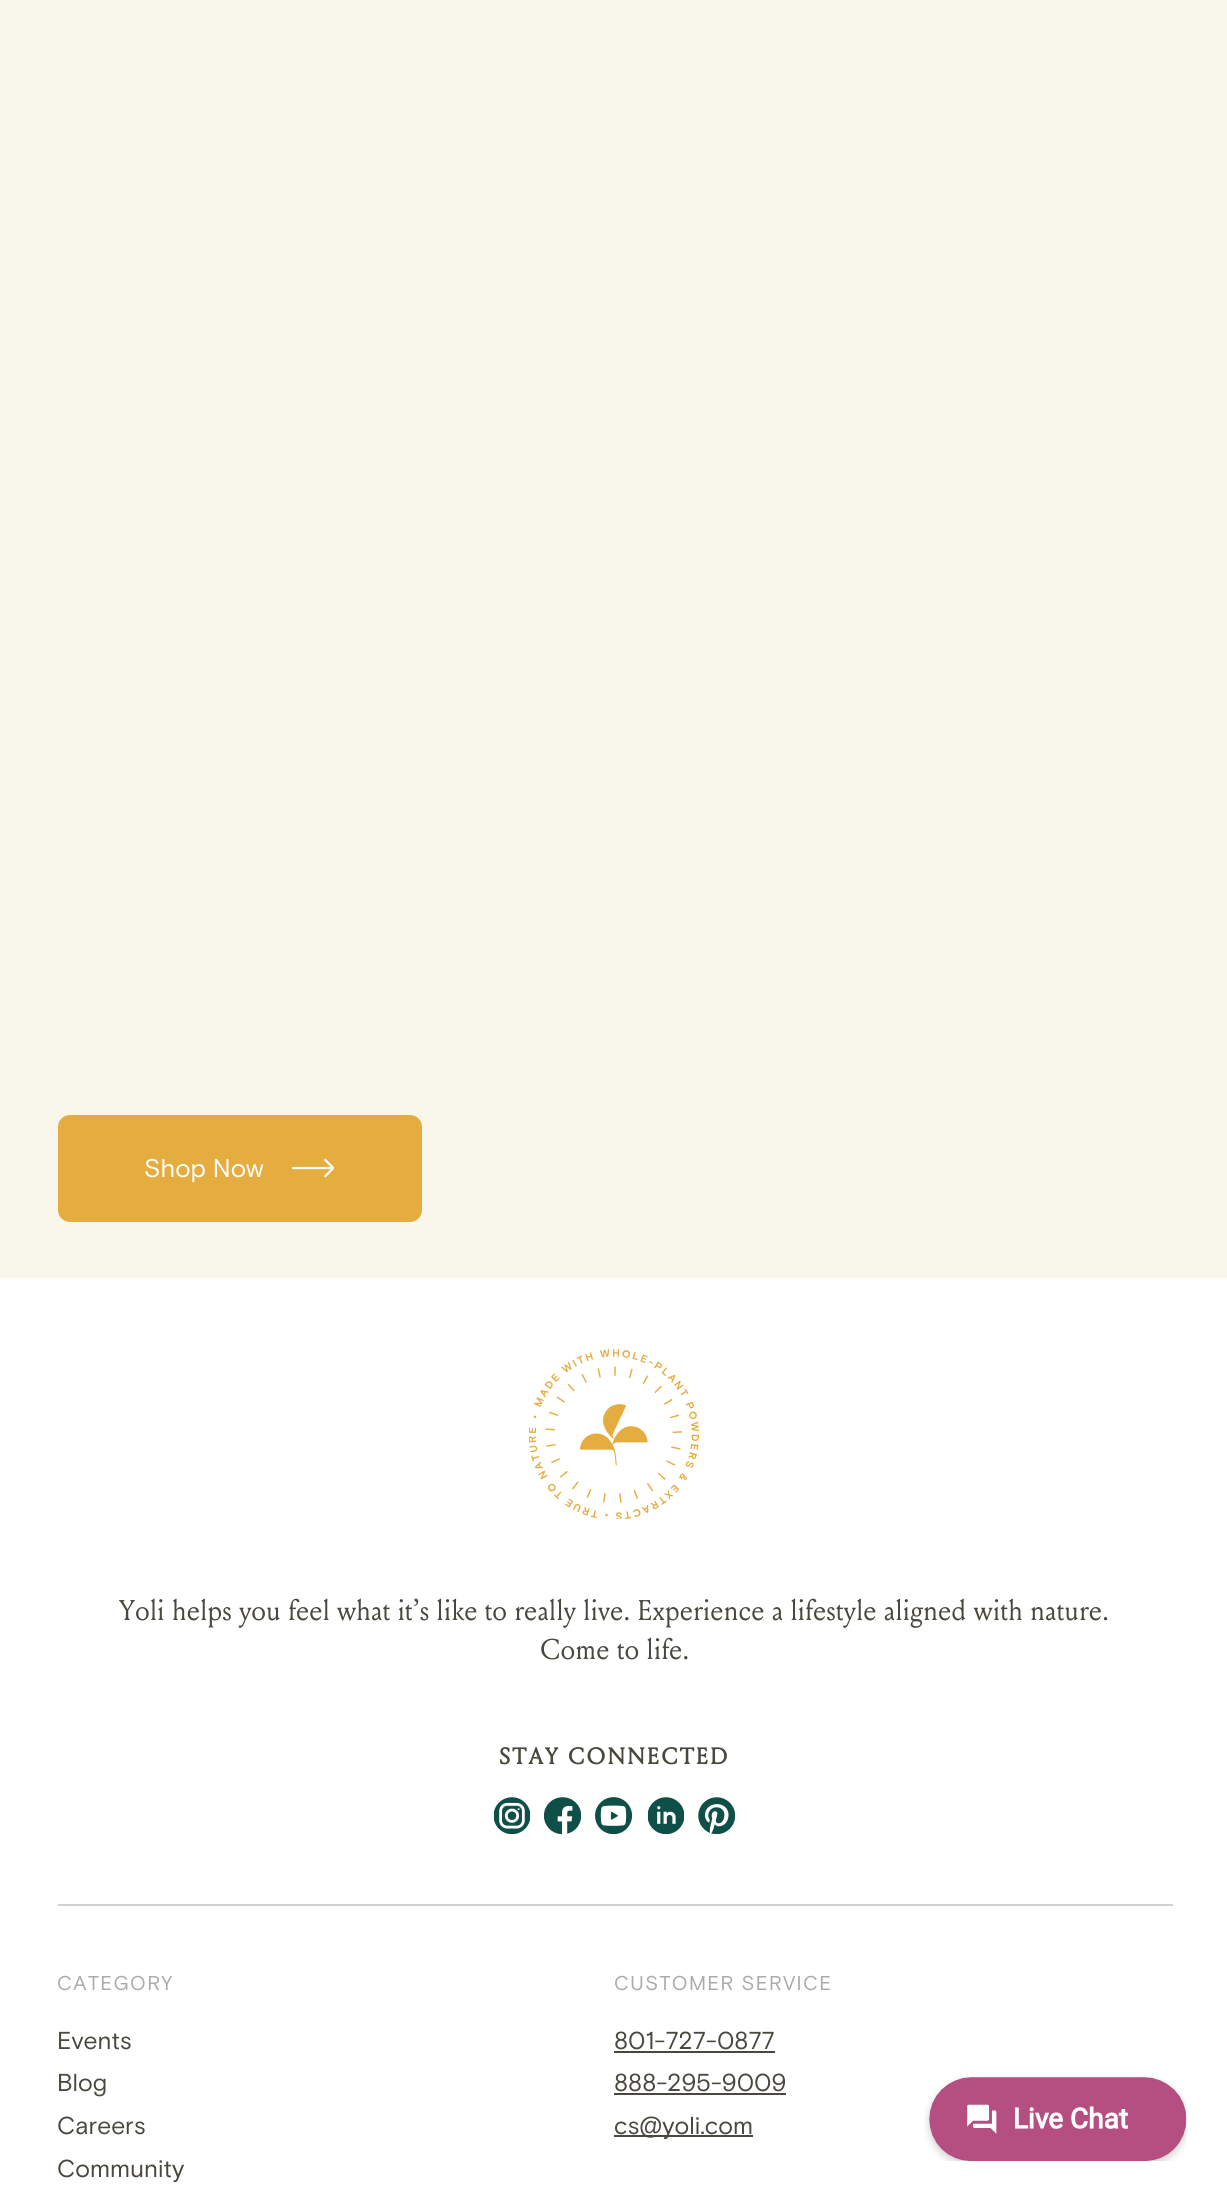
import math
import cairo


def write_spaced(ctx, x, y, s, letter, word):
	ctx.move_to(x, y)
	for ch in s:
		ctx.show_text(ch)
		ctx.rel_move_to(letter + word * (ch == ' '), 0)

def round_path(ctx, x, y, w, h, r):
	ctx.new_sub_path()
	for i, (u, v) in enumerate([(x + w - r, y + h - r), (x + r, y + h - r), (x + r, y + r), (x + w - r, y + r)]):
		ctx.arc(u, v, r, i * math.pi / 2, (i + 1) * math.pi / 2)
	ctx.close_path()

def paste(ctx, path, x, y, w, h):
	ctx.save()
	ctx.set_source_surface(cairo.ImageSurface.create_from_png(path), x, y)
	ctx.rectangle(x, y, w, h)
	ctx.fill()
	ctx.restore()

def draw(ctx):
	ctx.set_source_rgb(0.973, 0.961, 0.922)
	ctx.paint()
	ctx.set_source_rgb(0.898, 0.675, 0.251)
	round_path(ctx, 59, 1116, 362, 105, 11)
	ctx.fill_preserve()
	ctx.stroke()
	ctx.select_font_face('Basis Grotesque')
	ctx.set_font_size(25.5)
	ctx.set_source_rgb(1, 1, 1)
	ctx.move_to(144, 1177)
	ctx.show_text('Shop Now')
	paste(ctx, 'media/1.png', 292, 1158, 42, 20)
	ctx.rectangle(0, 1278, 1227, 925)
	ctx.fill()
	paste(ctx, 'media/2.png', 529, 1349, 171, 170)
	ctx.select_font_face('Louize')
	ctx.set_font_size(28.45)
	ctx.set_source_rgb(0.286, 0.278, 0.243)
	ctx.move_to(119, 1620)
	ctx.show_text('Yoli helps you feel what it’s like to really live. Experience a lifestyle aligned with nature.')
	ctx.move_to(540, 1659)
	ctx.show_text('Come to life.')
	ctx.select_font_face('Louize', cairo.FONT_SLANT_NORMAL, cairo.FONT_WEIGHT_BOLD)
	ctx.set_font_size(22.75)
	write_spaced(ctx, 499, 1764, 'STAY CONNECTED', 2.25, 0)
	paste(ctx, 'media/3.png', 494, 1797, 36, 37)
	paste(ctx, 'media/4.png', 544, 1797, 37, 37)
	paste(ctx, 'media/5.png', 595, 1797, 38, 37)
	paste(ctx, 'media/6.png', 648, 1797, 36, 37)
	paste(ctx, 'media/7.png', 698, 1797, 37, 37)
	ctx.set_source_rgb(0.82, 0.82, 0.812)
	ctx.rectangle(58, 1904, 1115, 2)
	ctx.fill()
	ctx.select_font_face('Basis Grotesque')
	ctx.set_font_size(20)
	ctx.set_source_rgb(0.667, 0.667, 0.667)
	write_spaced(ctx, 57, 1990, 'CATEGORY', 1.4, 0)
	ctx.set_font_size(24.5)
	ctx.set_source_rgb(0.286, 0.278, 0.243)
	for x, y, s in [
		(57, 2049, 'Events'),
		(57, 2091, 'Blog'),
		(57, 2134, 'Careers'),
		(57, 2177, 'Community'),
	]:
		ctx.move_to(x, y)
		ctx.show_text(s)
	ctx.set_font_size(20)
	ctx.set_source_rgb(0.667, 0.667, 0.667)
	write_spaced(ctx, 614, 1990, 'CUSTOMER SERVICE', 1.4, 0)
	ctx.set_font_size(24.5)
	ctx.set_source_rgb(0.286, 0.278, 0.243)
	ctx.move_to(614, 2049)
	ctx.show_text('801-727-0877')
	ctx.rectangle(614, 2051, 161, 2)
	ctx.fill()
	ctx.move_to(614, 2091)
	ctx.show_text('888-295-9009')
	ctx.rectangle(614, 2093, 172, 2)
	ctx.fill()
	ctx.rectangle(614, 2135, 139, 2)
	ctx.fill()
	ctx.move_to(614, 2134)
	ctx.show_text('cs@yoli.com')
	paste(ctx, 'media/8.png', 924, 2076, 263, 86)


surface = cairo.ImageSurface(cairo.FORMAT_RGB24, 1227, 2203)
ctx = cairo.Context(surface)
options = cairo.FontOptions()
options.set_hint_metrics(cairo.HINT_METRICS_OFF)
options.set_hint_style(cairo.HINT_STYLE_NONE)
ctx.set_font_options(options)
ctx.set_miter_limit(4)
draw(ctx)
surface.write_to_png('image.png')
